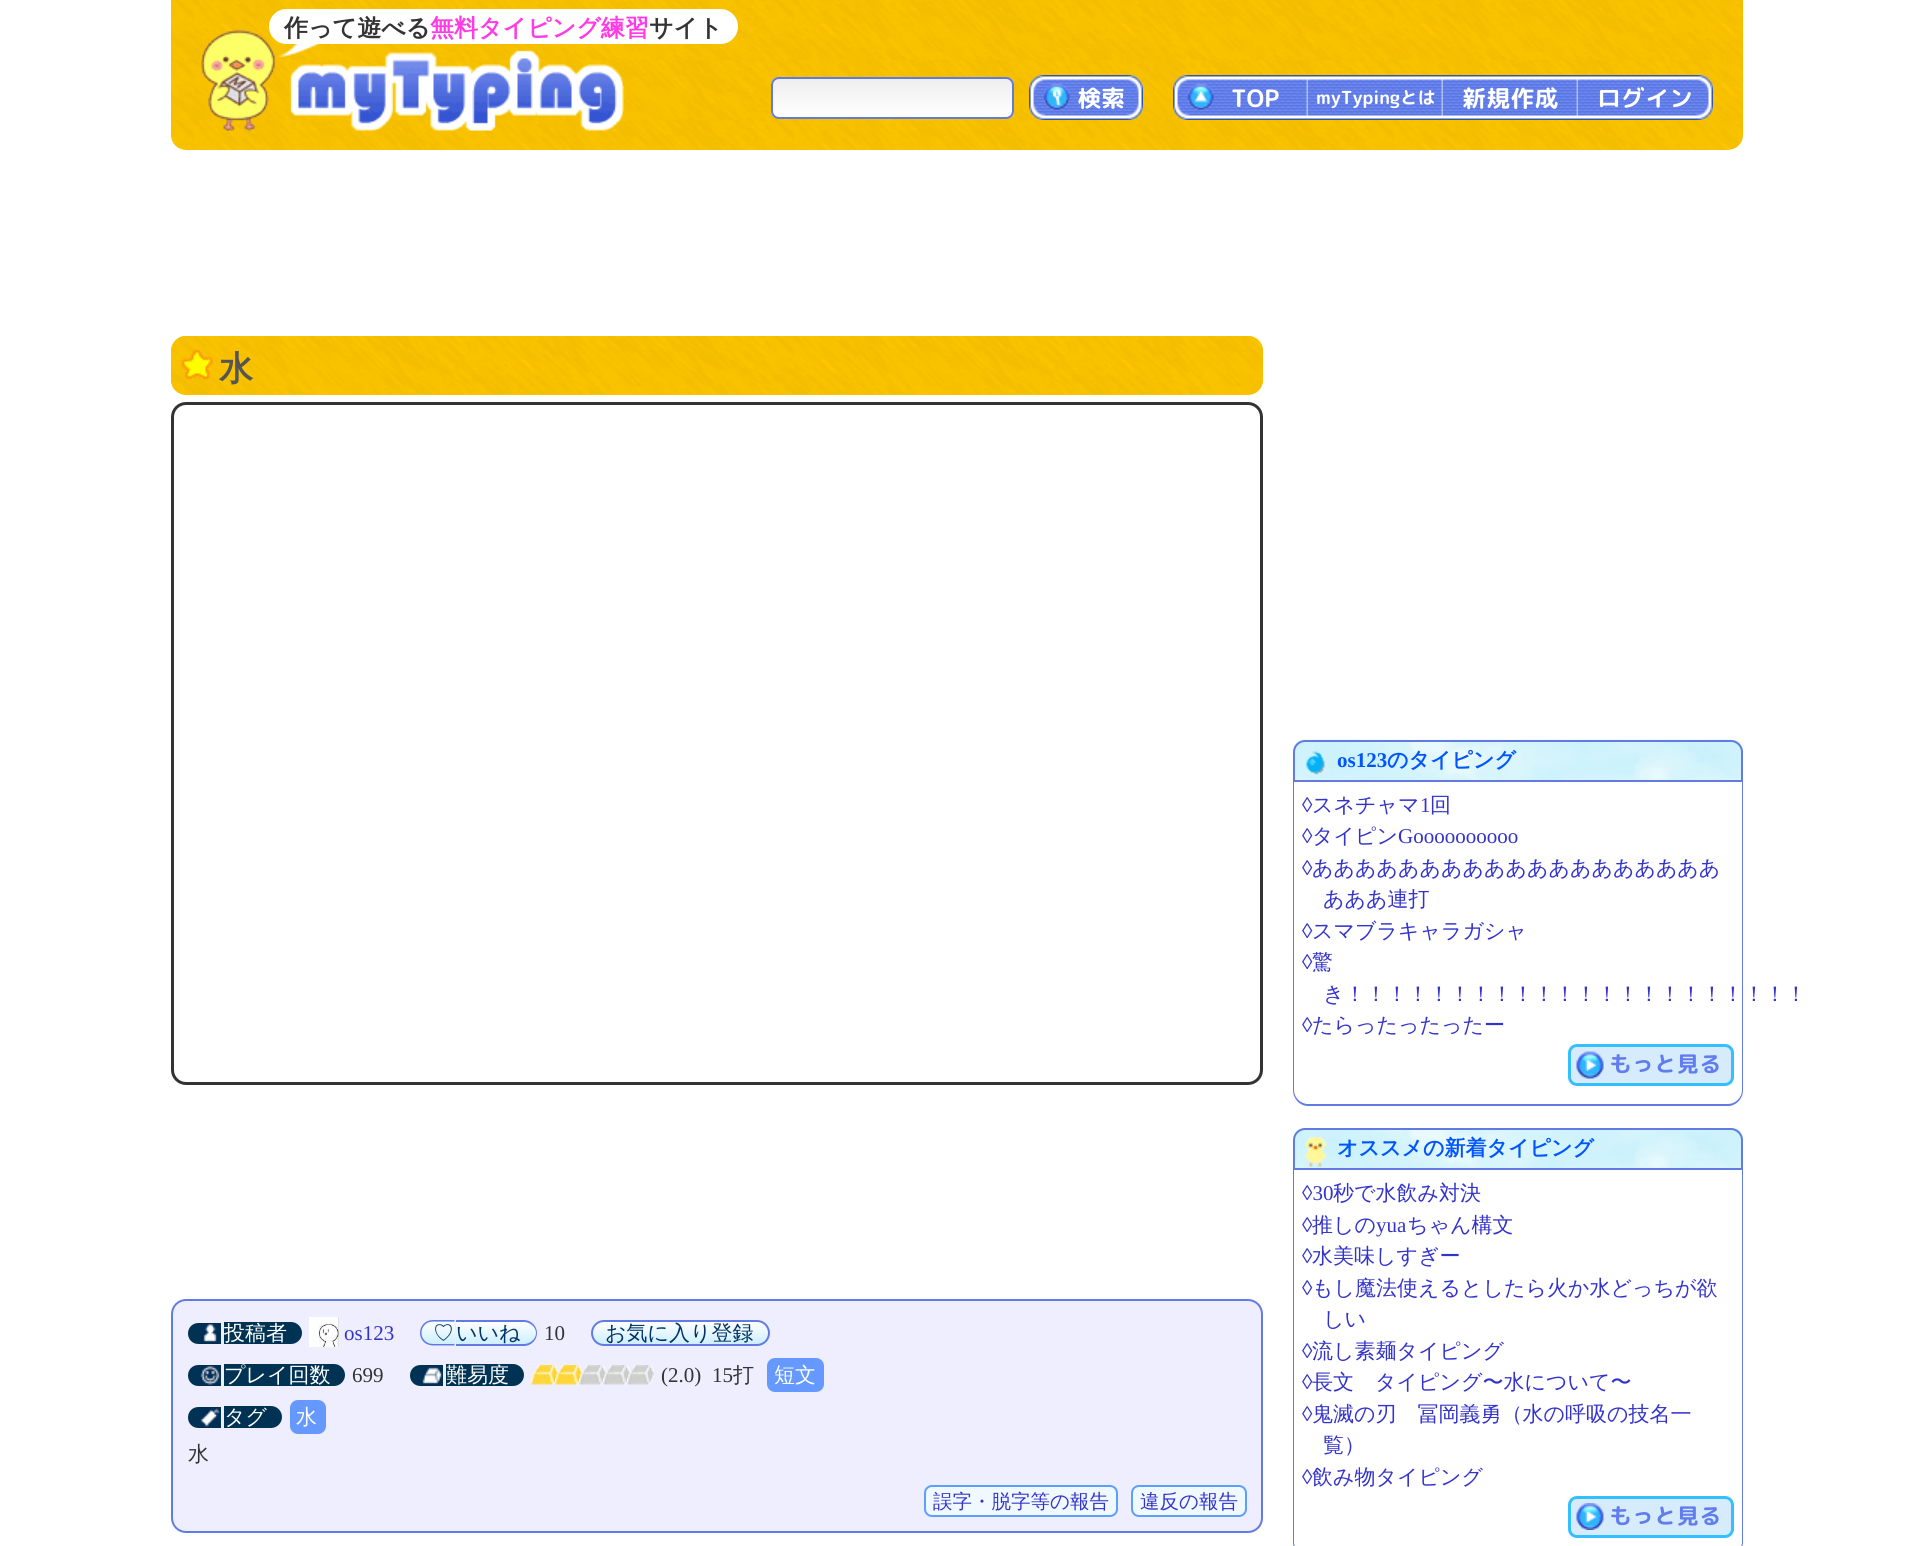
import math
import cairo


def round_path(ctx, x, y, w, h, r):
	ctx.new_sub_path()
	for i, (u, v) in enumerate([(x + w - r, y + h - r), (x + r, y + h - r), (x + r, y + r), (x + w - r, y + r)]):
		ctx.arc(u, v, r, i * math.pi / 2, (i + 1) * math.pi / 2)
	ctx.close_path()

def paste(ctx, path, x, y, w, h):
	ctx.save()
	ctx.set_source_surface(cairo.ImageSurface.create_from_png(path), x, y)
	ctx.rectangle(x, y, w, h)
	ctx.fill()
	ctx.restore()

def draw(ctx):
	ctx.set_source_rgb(1, 1, 1)
	ctx.paint()
	paste(ctx, 'media/1.png', 171, 0, 1572, 150)
	paste(ctx, 'media/2.png', 201, 29, 423, 102)
	ctx.set_source_rgb(1, 1, 1)
	round_path(ctx, 269, 9, 469, 35, 17.5)
	ctx.fill()
	ctx.select_font_face('WenQuanYi Zen Hei', cairo.FONT_SLANT_NORMAL, cairo.FONT_WEIGHT_BOLD)
	ctx.set_font_size(24)
	ctx.set_source_rgb(0.2, 0.2, 0.2)
	ctx.move_to(284, 36)
	ctx.show_text('作って遊べる')
	ctx.set_source_rgb(0.996, 0.231, 0.898)
	ctx.move_to(430, 36)
	ctx.show_text('無料タイピング練習')
	ctx.set_source_rgb(0.2, 0.2, 0.2)
	ctx.move_to(649, 36)
	ctx.show_text('サイト')
	ctx.save()
	round_path(ctx, 771, 77, 243, 42, 8)
	ctx.clip()
	gradient = cairo.LinearGradient(893, 78, 893, 117)
	gradient.add_color_stop_rgba(0, 0.933, 0.933, 0.933, 1)
	gradient.add_color_stop_rgba(1, 1, 1, 1, 1)
	ctx.set_source(gradient)
	ctx.rectangle(771, 78, 243, 39)
	ctx.fill()
	ctx.restore()
	round_path(ctx, 772, 78, 241, 40, 7)
	ctx.set_source_rgb(0.38, 0.482, 0.89)
	ctx.stroke()
	paste(ctx, 'media/3.png', 1029, 75, 114, 45)
	ctx.select_font_face('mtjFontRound', cairo.FONT_SLANT_NORMAL, cairo.FONT_WEIGHT_BOLD)
	ctx.set_source_rgb(1, 1, 1)
	ctx.move_to(1077, 107)
	ctx.show_text('検索')
	paste(ctx, 'media/4.png', 1173, 75, 135, 45)
	ctx.move_to(1231, 107)
	ctx.show_text('TOP')
	paste(ctx, 'media/5.png', 1308, 75, 135, 45)
	ctx.set_font_size(18)
	ctx.move_to(1316, 104)
	ctx.show_text('myTypingとは')
	paste(ctx, 'media/6.png', 1443, 75, 135, 45)
	ctx.set_font_size(24)
	ctx.move_to(1462, 107)
	ctx.show_text('新規作成')
	paste(ctx, 'media/7.png', 1578, 75, 135, 45)
	ctx.move_to(1597, 107)
	ctx.show_text('ログイン')
	ctx.set_source_rgb(0.98, 0.765, 0)
	round_path(ctx, 171, 336, 1092, 59, 15)
	ctx.fill()
	paste(ctx, 'media/8.png', 171, 336, 1092, 58)
	paste(ctx, 'media/9.png', 181, 349, 32, 31)
	ctx.select_font_face('WenQuanYi Zen Hei', cairo.FONT_SLANT_NORMAL, cairo.FONT_WEIGHT_BOLD)
	ctx.set_font_size(34)
	ctx.set_source_rgb(0.333, 0.333, 0.333)
	ctx.move_to(219, 380)
	ctx.show_text('水')
	round_path(ctx, 172.5, 403.5, 1089, 680, 13.5)
	ctx.set_source_rgb(0.2, 0.2, 0.2)
	ctx.set_line_width(3)
	ctx.stroke()
	ctx.set_source_rgb(0.933, 0.933, 1)
	round_path(ctx, 172, 1300, 1090, 232, 14)
	ctx.fill_preserve()
	ctx.set_source_rgb(0.38, 0.482, 0.89)
	ctx.set_line_width(2)
	ctx.stroke()
	ctx.set_source_rgb(0, 0.2, 0.325)
	ctx.new_path()
	ctx.move_to(198.5, 1323)
	ctx.line_to(221, 1323)
	ctx.line_to(221, 1344)
	ctx.line_to(198.5, 1344)
	ctx.curve_to(192.5, 1344, 188, 1339.5, 188, 1333.5)
	ctx.curve_to(188, 1327.5, 192.5, 1323, 198.5, 1323)
	ctx.close_path()
	ctx.fill()
	ctx.new_path()
	ctx.move_to(224, 1322)
	ctx.line_to(291, 1322)
	ctx.curve_to(297, 1322, 302, 1327, 302, 1333)
	ctx.curve_to(302, 1339, 297, 1344, 291, 1344)
	ctx.line_to(224, 1344)
	ctx.close_path()
	ctx.fill()
	paste(ctx, 'media/10.png', 200, 1323, 20, 21)
	ctx.select_font_face('WenQuanYi Zen Hei Medium')
	ctx.set_font_size(21)
	ctx.set_source_rgb(1, 1, 1)
	ctx.move_to(224, 1340)
	ctx.show_text('投稿者')
	paste(ctx, 'media/11.png', 309, 1317, 30, 30)
	ctx.select_font_face('Liberation Serif')
	ctx.set_source_rgb(0.2, 0.2, 0.8)
	ctx.move_to(344, 1340)
	ctx.show_text('os123')
	ctx.save()
	ctx.new_path()
	ctx.move_to(433, 1320)
	ctx.line_to(455, 1320)
	ctx.line_to(455, 1346)
	ctx.line_to(433, 1346)
	ctx.curve_to(426, 1346, 420, 1340, 420, 1333)
	ctx.curve_to(420, 1326, 426, 1320, 433, 1320)
	ctx.close_path()
	ctx.clip()
	gradient = cairo.LinearGradient(438, 1322, 438, 1344)
	gradient.add_color_stop_rgba(0, 0.996, 0.996, 1, 1)
	gradient.add_color_stop_rgba(1, 0.804, 0.937, 1, 1)
	ctx.set_source(gradient)
	ctx.rectangle(420, 1322, 35, 22)
	ctx.fill()
	gradient = cairo.LinearGradient(438, 1299, 438, 1322)
	gradient.add_color_stop_rgba(0, 0.996, 0.996, 1, 1)
	gradient.add_color_stop_rgba(1, 0.804, 0.937, 1, 1)
	ctx.set_source(gradient)
	ctx.rectangle(420, 1320, 35, 2)
	ctx.fill()
	gradient = cairo.LinearGradient(438, 1344, 438, 1367)
	gradient.add_color_stop_rgba(0, 0.996, 0.996, 1, 1)
	gradient.add_color_stop_rgba(1, 0.804, 0.937, 1, 1)
	ctx.set_source(gradient)
	ctx.rectangle(420, 1344, 35, 2)
	ctx.fill()
	ctx.restore()
	ctx.set_source_rgb(0.38, 0.482, 0.89)
	ctx.set_fill_rule(cairo.FILL_RULE_EVEN_ODD)
	ctx.new_path()
	ctx.move_to(433, 1320)
	ctx.line_to(454.5, 1320)
	ctx.line_to(454.5, 1345.5)
	ctx.line_to(433, 1345.5)
	ctx.curve_to(425.5, 1345.5, 420, 1340, 420, 1333)
	ctx.curve_to(420, 1325.5, 425.5, 1320, 433, 1320)
	ctx.close_path()
	ctx.move_to(433, 1321.5)
	ctx.line_to(454.5, 1321.5)
	ctx.line_to(454.5, 1344)
	ctx.line_to(433, 1344)
	ctx.curve_to(426.5, 1344, 421.5, 1339, 421.5, 1333)
	ctx.curve_to(421.5, 1326.5, 426.5, 1321.5, 433, 1321.5)
	ctx.close_path()
	ctx.fill()
	ctx.select_font_face('WenQuanYi Zen Hei Medium')
	ctx.set_source_rgb(0, 0.2, 0.4)
	ctx.move_to(433, 1340)
	ctx.show_text('♡')
	ctx.save()
	ctx.set_fill_rule(cairo.FILL_RULE_WINDING)
	ctx.new_path()
	ctx.move_to(456, 1320)
	ctx.line_to(524, 1320)
	ctx.curve_to(531, 1320, 537, 1326, 537, 1333)
	ctx.curve_to(537, 1340, 531, 1346, 524, 1346)
	ctx.line_to(456, 1346)
	ctx.close_path()
	ctx.clip()
	gradient = cairo.LinearGradient(496, 1322, 496, 1344)
	gradient.add_color_stop_rgba(0, 0.996, 0.996, 1, 1)
	gradient.add_color_stop_rgba(1, 0.804, 0.937, 1, 1)
	ctx.set_source(gradient)
	ctx.rectangle(456, 1322, 81, 22)
	ctx.fill()
	ctx.restore()
	ctx.set_source_rgb(0.38, 0.482, 0.89)
	ctx.new_path()
	ctx.move_to(456, 1320)
	ctx.line_to(524, 1320)
	ctx.curve_to(531, 1320, 537, 1326, 537, 1333)
	ctx.curve_to(537, 1340, 531, 1346, 524, 1346)
	ctx.line_to(456, 1346)
	ctx.close_path()
	ctx.move_to(456, 1322)
	ctx.line_to(524, 1322)
	ctx.curve_to(530, 1322, 536, 1327, 536, 1333)
	ctx.curve_to(536, 1339, 530, 1344, 524, 1344)
	ctx.line_to(456, 1344)
	ctx.close_path()
	ctx.fill()
	ctx.set_source_rgb(0, 0.2, 0.4)
	ctx.move_to(456, 1340)
	ctx.show_text('いいね')
	ctx.select_font_face('Liberation Serif')
	ctx.set_source_rgb(0.2, 0.2, 0.2)
	ctx.move_to(544, 1340)
	ctx.show_text('10')
	ctx.save()
	ctx.set_fill_rule(cairo.FILL_RULE_WINDING)
	round_path(ctx, 591, 1320, 179, 26, 13)
	ctx.clip()
	gradient = cairo.LinearGradient(680, 1322, 680, 1344)
	gradient.add_color_stop_rgba(0, 0.996, 0.996, 1, 1)
	gradient.add_color_stop_rgba(1, 0.804, 0.937, 1, 1)
	ctx.set_source(gradient)
	ctx.rectangle(591, 1322, 179, 22)
	ctx.fill()
	ctx.restore()
	round_path(ctx, 592, 1321, 177, 24, 12)
	ctx.set_source_rgb(0.38, 0.482, 0.89)
	ctx.stroke()
	ctx.select_font_face('WenQuanYi Zen Hei Medium')
	ctx.set_source_rgb(0, 0.2, 0.4)
	ctx.move_to(605, 1340)
	ctx.show_text('お気に入り登録')
	ctx.set_source_rgb(0, 0.2, 0.325)
	ctx.new_path()
	ctx.move_to(198.5, 1365)
	ctx.line_to(221, 1365)
	ctx.line_to(221, 1386)
	ctx.line_to(198.5, 1386)
	ctx.curve_to(192.5, 1386, 188, 1381.5, 188, 1375.5)
	ctx.curve_to(188, 1369.5, 192.5, 1365, 198.5, 1365)
	ctx.close_path()
	ctx.fill()
	ctx.new_path()
	ctx.move_to(224, 1364)
	ctx.line_to(334, 1364)
	ctx.curve_to(340, 1364, 345, 1369, 345, 1375)
	ctx.curve_to(345, 1381, 340, 1386, 334, 1386)
	ctx.line_to(224, 1386)
	ctx.close_path()
	ctx.fill()
	paste(ctx, 'media/12.png', 200, 1365, 20, 21)
	ctx.set_source_rgb(1, 1, 1)
	ctx.move_to(224, 1382)
	ctx.show_text('プレイ回数')
	ctx.select_font_face('Liberation Serif')
	ctx.set_source_rgb(0.2, 0.2, 0.2)
	ctx.move_to(352, 1382)
	ctx.show_text('699')
	ctx.set_source_rgb(0, 0.2, 0.325)
	ctx.new_path()
	ctx.move_to(420.5, 1365)
	ctx.line_to(443, 1365)
	ctx.line_to(443, 1386)
	ctx.line_to(420.5, 1386)
	ctx.curve_to(414.5, 1386, 410, 1381.5, 410, 1375.5)
	ctx.curve_to(410, 1369.5, 414.5, 1365, 420.5, 1365)
	ctx.close_path()
	ctx.fill()
	ctx.new_path()
	ctx.move_to(446, 1364)
	ctx.line_to(513, 1364)
	ctx.curve_to(519, 1364, 524, 1369, 524, 1375)
	ctx.curve_to(524, 1381, 519, 1386, 513, 1386)
	ctx.line_to(446, 1386)
	ctx.close_path()
	ctx.fill()
	paste(ctx, 'media/13.png', 422, 1365, 20, 21)
	ctx.select_font_face('WenQuanYi Zen Hei Medium')
	ctx.set_source_rgb(1, 1, 1)
	ctx.move_to(446, 1382)
	ctx.show_text('難易度')
	paste(ctx, 'media/14.png', 531, 1365, 27, 20)
	paste(ctx, 'media/15.png', 555, 1365, 27, 20)
	paste(ctx, 'media/16.png', 579, 1365, 27, 20)
	paste(ctx, 'media/17.png', 603, 1365, 27, 20)
	paste(ctx, 'media/18.png', 627, 1365, 27, 20)
	ctx.select_font_face('Liberation Serif')
	ctx.set_source_rgb(0.2, 0.2, 0.2)
	ctx.move_to(661, 1382)
	ctx.show_text('(2.0)')
	ctx.move_to(712, 1382)
	ctx.show_text('15')
	ctx.select_font_face('WenQuanYi Zen Hei Medium')
	ctx.move_to(733, 1382)
	ctx.show_text('打')
	ctx.set_source_rgb(0.4, 0.6, 1)
	round_path(ctx, 767, 1358, 57, 34, 8)
	ctx.fill()
	ctx.set_source_rgb(1, 1, 1)
	ctx.move_to(774, 1382)
	ctx.show_text('短文')
	ctx.set_source_rgb(0, 0.2, 0.325)
	ctx.new_path()
	ctx.move_to(198.5, 1407)
	ctx.line_to(221, 1407)
	ctx.line_to(221, 1428)
	ctx.line_to(198.5, 1428)
	ctx.curve_to(192.5, 1428, 188, 1423.5, 188, 1417.5)
	ctx.curve_to(188, 1411.5, 192.5, 1407, 198.5, 1407)
	ctx.close_path()
	ctx.fill()
	ctx.new_path()
	ctx.move_to(224, 1406)
	ctx.line_to(271, 1406)
	ctx.curve_to(277, 1406, 282, 1411, 282, 1417)
	ctx.curve_to(282, 1423, 277, 1428, 271, 1428)
	ctx.line_to(224, 1428)
	ctx.close_path()
	ctx.fill()
	paste(ctx, 'media/19.png', 200, 1407, 20, 21)
	ctx.set_source_rgb(1, 1, 1)
	ctx.move_to(224, 1424)
	ctx.show_text('タグ')
	ctx.set_source_rgb(0.4, 0.6, 1)
	round_path(ctx, 290, 1400, 36, 34, 8)
	ctx.fill()
	ctx.set_source_rgb(1, 1, 1)
	ctx.move_to(296, 1424)
	ctx.show_text('水')
	ctx.set_source_rgb(0.2, 0.2, 0.2)
	ctx.move_to(188, 1461)
	ctx.show_text('水')
	ctx.set_source_rgb(0.941, 0.973, 1)
	round_path(ctx, 925, 1486, 192, 30, 7)
	ctx.fill_preserve()
	ctx.set_source_rgb(0.357, 0.624, 1)
	ctx.stroke()
	ctx.set_font_size(19.5)
	ctx.set_source_rgb(0.2, 0.2, 0.8)
	ctx.move_to(933, 1508)
	ctx.show_text('誤字・脱字等の報告')
	ctx.set_source_rgb(0.941, 0.973, 1)
	round_path(ctx, 1132, 1486, 114, 30, 7)
	ctx.fill_preserve()
	ctx.set_source_rgb(0.357, 0.624, 1)
	ctx.stroke()
	ctx.set_source_rgb(0.2, 0.2, 0.8)
	ctx.move_to(1140, 1508)
	ctx.show_text('違反の報告')
	paste(ctx, 'media/20.png', 1293, 739, 450, 41)
	ctx.new_path()
	ctx.move_to(1305, 741)
	ctx.line_to(1731, 741)
	ctx.curve_to(1737, 741, 1742, 746, 1742, 752)
	ctx.line_to(1742, 781)
	ctx.line_to(1294, 781)
	ctx.line_to(1294, 752)
	ctx.curve_to(1294, 746, 1299, 741, 1305, 741)
	ctx.close_path()
	ctx.set_source_rgb(0.38, 0.482, 0.89)
	ctx.stroke()
	paste(ctx, 'media/21.png', 1306, 751, 19, 24)
	ctx.select_font_face('Liberation Serif', cairo.FONT_SLANT_NORMAL, cairo.FONT_WEIGHT_BOLD)
	ctx.set_font_size(21)
	ctx.set_source_rgb(0, 0.333, 1)
	ctx.move_to(1337, 767)
	ctx.show_text('os123')
	ctx.select_font_face('WenQuanYi Zen Hei', cairo.FONT_SLANT_NORMAL, cairo.FONT_WEIGHT_BOLD)
	ctx.move_to(1387, 767)
	ctx.show_text('のタイピング')
	ctx.set_source_rgb(0.38, 0.482, 0.89)
	ctx.new_path()
	ctx.move_to(1293, 782)
	ctx.line_to(1743, 782)
	ctx.line_to(1743, 1090)
	ctx.curve_to(1743, 1099, 1736, 1106, 1728, 1106)
	ctx.line_to(1308, 1106)
	ctx.curve_to(1300, 1106, 1293, 1099, 1293, 1090)
	ctx.close_path()
	ctx.move_to(1294, 782)
	ctx.line_to(1742, 782)
	ctx.line_to(1742, 1090)
	ctx.curve_to(1742, 1098, 1735, 1104, 1728, 1104)
	ctx.line_to(1308, 1104)
	ctx.curve_to(1301, 1104, 1294, 1098, 1294, 1090)
	ctx.close_path()
	ctx.fill()
	ctx.select_font_face('Liberation Serif')
	ctx.set_source_rgb(0.2, 0.2, 0.8)
	ctx.move_to(1302, 812)
	ctx.show_text('◊')
	ctx.select_font_face('WenQuanYi Zen Hei Medium')
	ctx.move_to(1312, 812)
	ctx.show_text('スネチャマ')
	ctx.select_font_face('Liberation Serif')
	ctx.move_to(1420, 812)
	ctx.show_text('1')
	ctx.select_font_face('WenQuanYi Zen Hei Medium')
	ctx.move_to(1430, 812)
	ctx.show_text('回')
	ctx.select_font_face('Liberation Serif')
	ctx.move_to(1302, 843)
	ctx.show_text('◊')
	ctx.select_font_face('WenQuanYi Zen Hei Medium')
	ctx.move_to(1312, 843)
	ctx.show_text('タイピン')
	ctx.select_font_face('Liberation Serif')
	ctx.move_to(1398, 843)
	ctx.show_text('Goooooooooo')
	ctx.move_to(1302, 875)
	ctx.show_text('◊')
	ctx.select_font_face('WenQuanYi Zen Hei Medium')
	ctx.move_to(1312, 875)
	ctx.show_text('あああああああああああああああああああ')
	ctx.move_to(1323, 906)
	ctx.show_text('あああ連打')
	ctx.select_font_face('Liberation Serif')
	ctx.move_to(1302, 938)
	ctx.show_text('◊')
	ctx.select_font_face('WenQuanYi Zen Hei Medium')
	ctx.move_to(1312, 938)
	ctx.show_text('スマブラキャラガシャ')
	ctx.select_font_face('Liberation Serif')
	ctx.move_to(1302, 969)
	ctx.show_text('◊')
	ctx.select_font_face('WenQuanYi Zen Hei Medium')
	ctx.move_to(1312, 969)
	ctx.show_text('驚')
	ctx.move_to(1323, 1001)
	ctx.show_text('き！！！！！！！！！！！！！！！！！！！！！！')
	ctx.select_font_face('Liberation Serif')
	ctx.move_to(1302, 1032)
	ctx.show_text('◊')
	ctx.select_font_face('WenQuanYi Zen Hei Medium')
	ctx.move_to(1312, 1032)
	ctx.show_text('たらったったったー')
	ctx.set_source_rgb(0.839, 0.922, 0.992)
	round_path(ctx, 1569.5, 1045.5, 163, 39, 7.5)
	ctx.fill_preserve()
	ctx.set_source_rgb(0.204, 0.749, 1)
	ctx.set_line_width(3)
	ctx.stroke()
	paste(ctx, 'media/22.png', 1576, 1051, 28, 28)
	ctx.select_font_face('mtjFontRound', cairo.FONT_SLANT_NORMAL, cairo.FONT_WEIGHT_BOLD)
	ctx.set_font_size(22.5)
	ctx.set_source_rgb(0.376, 0.486, 0.929)
	ctx.move_to(1609, 1072)
	ctx.show_text('もっと見る')
	paste(ctx, 'media/23.png', 1293, 1128, 450, 40)
	ctx.new_path()
	ctx.move_to(1305, 1129)
	ctx.line_to(1731, 1129)
	ctx.curve_to(1737, 1129, 1742, 1134, 1742, 1140)
	ctx.line_to(1742, 1169)
	ctx.line_to(1294, 1169)
	ctx.line_to(1294, 1140)
	ctx.curve_to(1294, 1134, 1299, 1129, 1305, 1129)
	ctx.close_path()
	ctx.set_source_rgb(0.38, 0.482, 0.89)
	ctx.set_line_width(2)
	ctx.stroke()
	paste(ctx, 'media/24.png', 1304, 1136, 23, 32)
	ctx.select_font_face('WenQuanYi Zen Hei', cairo.FONT_SLANT_NORMAL, cairo.FONT_WEIGHT_BOLD)
	ctx.set_font_size(21)
	ctx.set_source_rgb(0, 0.333, 1)
	ctx.move_to(1337, 1155)
	ctx.show_text('オススメの新着タイピング')
	ctx.set_source_rgb(0.38, 0.482, 0.89)
	ctx.new_path()
	ctx.move_to(1293, 1170)
	ctx.line_to(1743, 1170)
	ctx.line_to(1743, 1542)
	ctx.curve_to(1743, 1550, 1736, 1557, 1728, 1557)
	ctx.line_to(1308, 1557)
	ctx.curve_to(1300, 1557, 1293, 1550, 1293, 1542)
	ctx.close_path()
	ctx.move_to(1294, 1170)
	ctx.line_to(1742, 1170)
	ctx.line_to(1742, 1542)
	ctx.curve_to(1742, 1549, 1735, 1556, 1728, 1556)
	ctx.line_to(1308, 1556)
	ctx.curve_to(1301, 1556, 1294, 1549, 1294, 1542)
	ctx.close_path()
	ctx.fill()
	ctx.select_font_face('Liberation Serif')
	ctx.set_source_rgb(0.2, 0.2, 0.8)
	ctx.move_to(1302, 1200)
	ctx.show_text('◊30')
	ctx.select_font_face('WenQuanYi Zen Hei Medium')
	ctx.move_to(1333, 1200)
	ctx.show_text('秒で水飲み対決')
	ctx.select_font_face('Liberation Serif')
	ctx.move_to(1302, 1232)
	ctx.show_text('◊')
	ctx.select_font_face('WenQuanYi Zen Hei Medium')
	ctx.move_to(1312, 1232)
	ctx.show_text('推しの')
	ctx.select_font_face('Liberation Serif')
	ctx.move_to(1376, 1232)
	ctx.show_text('yua')
	ctx.select_font_face('WenQuanYi Zen Hei Medium')
	ctx.move_to(1407, 1232)
	ctx.show_text('ちゃん構文')
	ctx.select_font_face('Liberation Serif')
	ctx.move_to(1302, 1263)
	ctx.show_text('◊')
	ctx.select_font_face('WenQuanYi Zen Hei Medium')
	ctx.move_to(1312, 1263)
	ctx.show_text('水美味しすぎー')
	ctx.select_font_face('Liberation Serif')
	ctx.move_to(1302, 1295)
	ctx.show_text('◊')
	ctx.select_font_face('WenQuanYi Zen Hei Medium')
	ctx.move_to(1312, 1295)
	ctx.show_text('もし魔法使えるとしたら火か水どっちが欲')
	ctx.move_to(1323, 1326)
	ctx.show_text('しい')
	ctx.select_font_face('Liberation Serif')
	ctx.move_to(1302, 1358)
	ctx.show_text('◊')
	ctx.select_font_face('WenQuanYi Zen Hei Medium')
	ctx.move_to(1312, 1358)
	ctx.show_text('流し素麺タイピング')
	ctx.select_font_face('Liberation Serif')
	ctx.move_to(1302, 1389)
	ctx.show_text('◊')
	ctx.select_font_face('WenQuanYi Zen Hei Medium')
	ctx.move_to(1312, 1389)
	ctx.show_text('長文　タイピング〜水について〜')
	ctx.select_font_face('Liberation Serif')
	ctx.move_to(1302, 1421)
	ctx.show_text('◊')
	ctx.select_font_face('WenQuanYi Zen Hei Medium')
	ctx.move_to(1312, 1421)
	ctx.show_text('鬼滅の刃　冨岡義勇（水の呼吸の技名一')
	ctx.move_to(1323, 1452)
	ctx.show_text('覧）')
	ctx.select_font_face('Liberation Serif')
	ctx.move_to(1302, 1484)
	ctx.show_text('◊')
	ctx.select_font_face('WenQuanYi Zen Hei Medium')
	ctx.move_to(1312, 1484)
	ctx.show_text('飲み物タイピング')
	ctx.set_source_rgb(0.839, 0.922, 0.992)
	round_path(ctx, 1569.5, 1497.5, 163, 39, 7.5)
	ctx.fill_preserve()
	ctx.set_source_rgb(0.204, 0.749, 1)
	ctx.set_line_width(3)
	ctx.stroke()
	paste(ctx, 'media/25.png', 1576, 1503, 28, 27)
	ctx.select_font_face('mtjFontRound', cairo.FONT_SLANT_NORMAL, cairo.FONT_WEIGHT_BOLD)
	ctx.set_font_size(22.5)
	ctx.set_source_rgb(0.376, 0.486, 0.929)
	ctx.move_to(1609, 1524)
	ctx.show_text('もっと見る')


surface = cairo.ImageSurface(cairo.FORMAT_RGB24, 1914, 1546)
ctx = cairo.Context(surface)
options = cairo.FontOptions()
options.set_hint_metrics(cairo.HINT_METRICS_OFF)
options.set_hint_style(cairo.HINT_STYLE_NONE)
ctx.set_font_options(options)
ctx.set_miter_limit(4)
draw(ctx)
surface.write_to_png('image.png')
